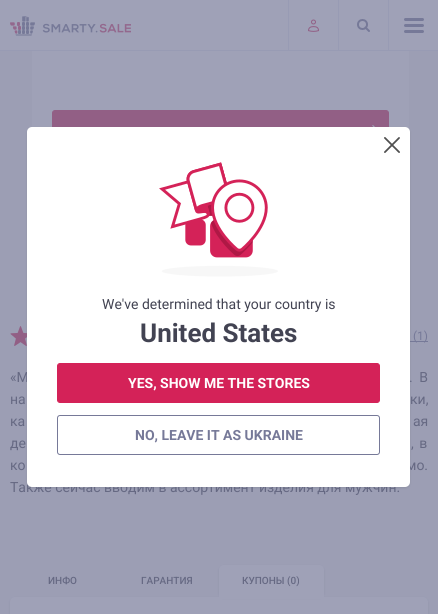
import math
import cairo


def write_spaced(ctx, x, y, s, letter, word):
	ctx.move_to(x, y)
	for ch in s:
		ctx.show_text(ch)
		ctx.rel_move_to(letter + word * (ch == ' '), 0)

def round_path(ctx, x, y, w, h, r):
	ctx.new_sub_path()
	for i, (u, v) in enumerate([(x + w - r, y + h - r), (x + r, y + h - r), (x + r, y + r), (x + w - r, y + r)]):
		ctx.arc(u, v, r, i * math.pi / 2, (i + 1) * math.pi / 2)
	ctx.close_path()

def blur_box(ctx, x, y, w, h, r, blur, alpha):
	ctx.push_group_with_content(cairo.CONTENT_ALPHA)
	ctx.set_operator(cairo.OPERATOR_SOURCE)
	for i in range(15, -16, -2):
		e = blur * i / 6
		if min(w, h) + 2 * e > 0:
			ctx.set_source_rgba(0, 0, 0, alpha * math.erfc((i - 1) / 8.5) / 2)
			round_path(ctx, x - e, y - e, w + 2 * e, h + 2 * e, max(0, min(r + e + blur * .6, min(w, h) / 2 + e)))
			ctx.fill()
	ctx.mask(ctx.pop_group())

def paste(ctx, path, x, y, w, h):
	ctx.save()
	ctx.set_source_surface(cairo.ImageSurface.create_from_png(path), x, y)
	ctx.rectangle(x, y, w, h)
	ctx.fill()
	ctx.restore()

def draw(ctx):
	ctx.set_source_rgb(0.612, 0.62, 0.706)
	ctx.paint()
	ctx.set_source_rgb(0.624, 0.631, 0.718)
	ctx.rectangle(32, 51, 377, 78)
	ctx.fill()
	ctx.set_source_rgb(0.573, 0.373, 0.522)
	round_path(ctx, 52.5, 110.5, 336, 39, 2.5)
	ctx.fill_preserve()
	ctx.set_line_width(1)
	ctx.stroke()
	paste(ctx, 'media/5.png', 372, 125, 3, 2)
	paste(ctx, 'media/6.png', 10, 326, 17, 20)
	ctx.set_source_rgb(0.463, 0.475, 0.596)
	ctx.rectangle(410, 341, 18, 1)
	ctx.fill()
	ctx.set_source_rgb(0.424, 0.443, 0.498)
	blur_box(ctx, 27, 128, 383, 360, 5, 1, 0.3)
	ctx.select_font_face('Roboto')
	ctx.set_font_size(14)
	ctx.set_source_rgb(0.4, 0.412, 0.514)
	write_spaced(ctx, 10, 382, '«M', 0, 3)
	write_spaced(ctx, 406, 470, 'мо.', 0, 1)
	ctx.move_to(10, 492)
	ctx.show_text('Также сейчас вводим в ассортимент изделия для мужчин.')
	ctx.set_source_rgb(1, 1, 1)
	round_path(ctx, 27, 127, 383, 360, 5)
	ctx.fill()
	paste(ctx, 'media/1.png', 384, 137, 16, 16)
	paste(ctx, 'media/2.png', 159, 162, 119, 115)
	ctx.set_source_rgb(0.259, 0.263, 0.322)
	ctx.move_to(102, 309)
	ctx.show_text('We\'ve determined that your country is')
	ctx.select_font_face('Roboto', cairo.FONT_SLANT_NORMAL, cairo.FONT_WEIGHT_BOLD)
	ctx.set_font_size(26)
	ctx.move_to(140, 342)
	ctx.show_text('United States')
	ctx.set_source_rgb(0.831, 0.133, 0.345)
	round_path(ctx, 57.5, 363.5, 322, 39, 2.5)
	ctx.fill_preserve()
	ctx.stroke()
	ctx.set_font_size(14)
	ctx.set_source_rgb(1, 1, 1)
	ctx.move_to(128, 388)
	ctx.show_text('YES, SHOW ME THE STORES')
	round_path(ctx, 57.5, 415.5, 322, 39, 2.5)
	ctx.set_source_rgb(0.463, 0.475, 0.596)
	ctx.stroke()
	ctx.move_to(135, 440)
	ctx.show_text('NO, LEAVE IT AS UKRAINE')
	ctx.set_source_rgb(0.624, 0.631, 0.718)
	ctx.rectangle(0, 0, 438, 50)
	ctx.fill()
	ctx.set_source_rgb(0.596, 0.608, 0.706)
	ctx.rectangle(0, 50, 438, 1)
	ctx.fill()
	paste(ctx, 'media/3.png', 10, 16, 121, 20)
	paste(ctx, 'media/4.png', 308, 19, 11, 13)
	ctx.rectangle(288, 0, 1, 50)
	ctx.fill()
	ctx.arc(362.5, 24.5, 4.5, 0, 2 * math.pi)
	ctx.set_source_rgb(0.463, 0.475, 0.596)
	ctx.set_line_width(2)
	ctx.stroke()
	ctx.new_path()
	ctx.move_to(365.5, 27.5)
	ctx.line_to(369, 31)
	ctx.set_line_cap(cairo.LINE_CAP_ROUND)
	ctx.set_line_join(cairo.LINE_JOIN_ROUND)
	ctx.stroke()
	ctx.set_source_rgb(0.596, 0.608, 0.706)
	ctx.rectangle(338, 0, 1, 50)
	ctx.fill()
	ctx.rectangle(388, 0, 1, 50)
	ctx.fill()
	ctx.set_source_rgb(0.463, 0.475, 0.596)
	round_path(ctx, 404, 24, 20, 3, 1.5)
	ctx.fill()
	round_path(ctx, 404, 18, 20, 3, 1.5)
	ctx.fill()
	round_path(ctx, 404, 30, 20, 3, 1.5)
	ctx.fill()
	ctx.select_font_face('Roboto')
	ctx.set_font_size(12)
	ctx.move_to(413, 340)
	ctx.show_text('(1)')
	ctx.set_font_size(14)
	ctx.set_source_rgb(0.4, 0.412, 0.514)
	write_spaced(ctx, 409, 382, '. В', 0, 3)
	write_spaced(ctx, 10, 404, 'на', 0, 2)
	write_spaced(ctx, 410, 404, 'ки,', 0, 2)
	write_spaced(ctx, 10, 426, 'ка', 0, 6)
	write_spaced(ctx, 413, 426, 'ая', 0, 6)
	write_spaced(ctx, 10, 448, 'де', 0, 2)
	write_spaced(ctx, 411, 448, ', в', 0, 2)
	write_spaced(ctx, 10, 470, 'ко', 0, 1)
	ctx.select_font_face('Roboto Medium')
	ctx.set_font_size(10)
	ctx.move_to(48, 584)
	ctx.show_text('ИНФО')
	ctx.move_to(141, 584)
	ctx.show_text('ГАРАНТИЯ')
	ctx.set_source_rgb(0.451, 0.467, 0.569)
	blur_box(ctx, 10, 598, 418, 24, 5, 1, 0.3)
	ctx.set_source_rgb(0.624, 0.631, 0.718)
	round_path(ctx, 10, 597, 418, 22, 5)
	ctx.fill()
	ctx.set_source_rgb(0.451, 0.467, 0.569)
	blur_box(ctx, 219, 566, 105, 32, 5, 1, 0.3)
	ctx.set_source_rgb(0.624, 0.631, 0.718)
	ctx.new_path()
	ctx.move_to(224, 565)
	ctx.line_to(319, 565)
	ctx.curve_to(322, 565, 324, 567, 324, 570)
	ctx.line_to(324, 597)
	ctx.line_to(219, 597)
	ctx.line_to(219, 570)
	ctx.curve_to(219, 567, 221, 565, 224, 565)
	ctx.close_path()
	ctx.fill()
	ctx.set_source_rgb(0.4, 0.412, 0.514)
	ctx.move_to(242, 584)
	ctx.show_text('КУПОНЫ (0)')
	ctx.set_source_rgb(0.624, 0.631, 0.718)
	ctx.rectangle(219, 597, 105, 2)
	ctx.fill()


surface = cairo.ImageSurface(cairo.FORMAT_RGB24, 438, 614)
ctx = cairo.Context(surface)
options = cairo.FontOptions()
options.set_hint_metrics(cairo.HINT_METRICS_OFF)
options.set_hint_style(cairo.HINT_STYLE_NONE)
ctx.set_font_options(options)
ctx.set_miter_limit(4)
draw(ctx)
surface.write_to_png('image.png')
